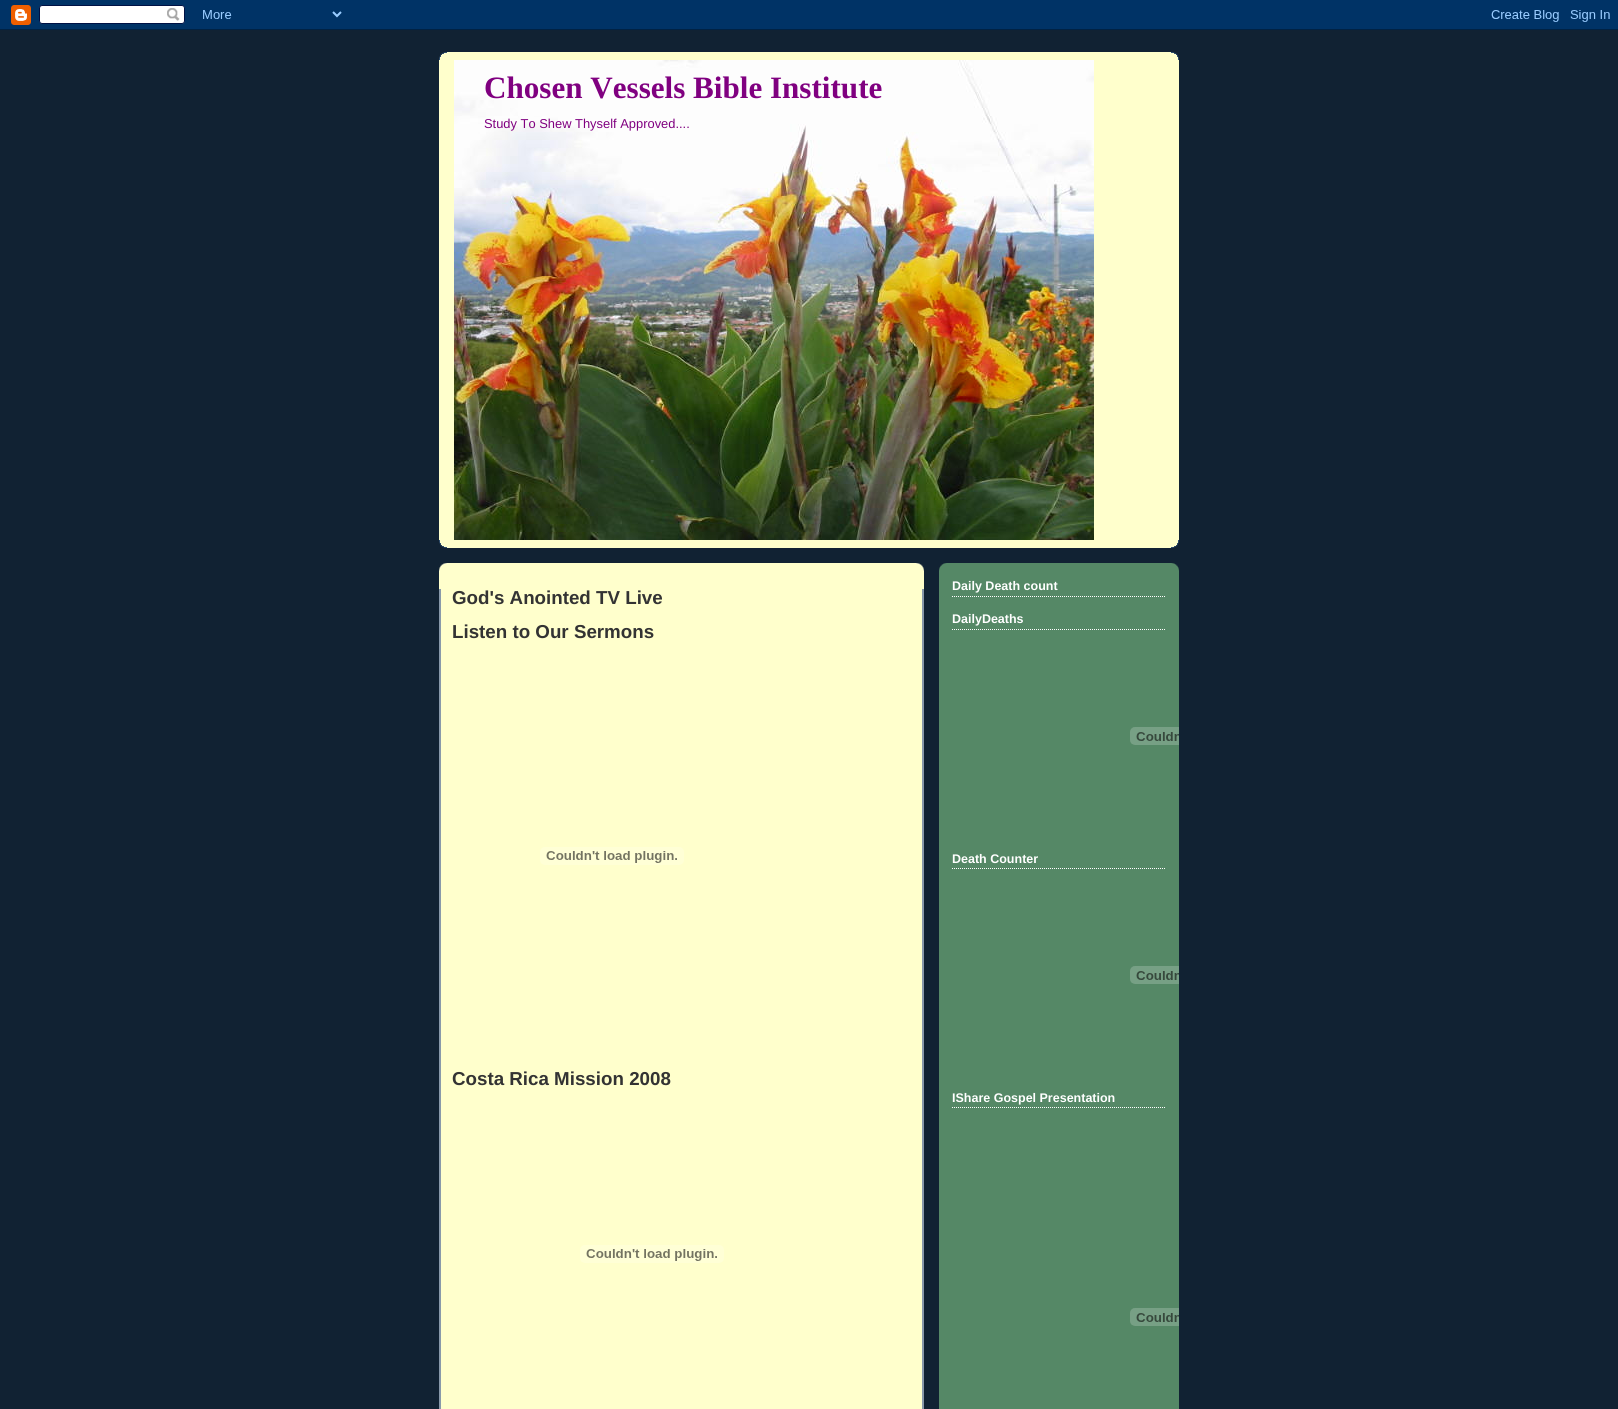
import math
import cairo


def paste(ctx, path, x, y, w, h):
	ctx.save()
	ctx.set_source_surface(cairo.ImageSurface.create_from_png(path), x, y)
	ctx.rectangle(x, y, w, h)
	ctx.fill()
	ctx.restore()

def draw(ctx):
	ctx.set_source_rgb(0.067, 0.133, 0.2)
	ctx.paint()
	paste(ctx, 'media/1.png', 0, 0, 1618, 30)
	ctx.set_source_rgb(1, 1, 0.8)
	ctx.rectangle(439, 52, 740, 496)
	ctx.fill()
	paste(ctx, 'media/2.png', 439, 52, 740, 8)
	paste(ctx, 'media/3.png', 439, 540, 740, 8)
	paste(ctx, 'media/4.png', 454, 60, 640, 480)
	ctx.select_font_face('Liberation Serif', cairo.FONT_SLANT_NORMAL, cairo.FONT_WEIGHT_BOLD)
	ctx.set_font_size(31.1)
	ctx.set_source_rgb(0.502, 0, 0.502)
	ctx.move_to(484, 98)
	ctx.show_text('Chosen Vessels Bible Institute')
	ctx.select_font_face('Liberation Sans')
	ctx.set_font_size(12.9)
	ctx.move_to(484, 128)
	ctx.show_text('Study To Shew Thyself Approved....')
	ctx.set_source_rgb(1, 1, 0.8)
	ctx.rectangle(439, 563, 485, 846)
	ctx.fill()
	paste(ctx, 'media/5.png', 439, 563, 485, 8)
	paste(ctx, 'media/6.png', 439, 589, 485, 820)
	ctx.select_font_face('Liberation Sans', cairo.FONT_SLANT_NORMAL, cairo.FONT_WEIGHT_BOLD)
	ctx.set_font_size(18.75)
	ctx.set_source_rgb(0.2, 0.2, 0.2)
	ctx.move_to(452, 604)
	ctx.show_text('God\'s Anointed TV Live')
	ctx.move_to(452, 638)
	ctx.show_text('Listen to Our Sermons')
	paste(ctx, 'media/7.png', 540, 847, 144, 18)
	ctx.move_to(452, 1085)
	ctx.show_text('Costa Rica Mission 2008')
	paste(ctx, 'media/7.png', 580, 1245, 144, 18)
	ctx.set_source_rgb(0.333, 0.533, 0.4)
	ctx.rectangle(939, 563, 240, 846)
	ctx.fill()
	paste(ctx, 'media/8.png', 939, 563, 240, 8)
	ctx.new_path()
	ctx.move_to(952, 596.5)
	ctx.line_to(1166, 596.5)
	ctx.set_source_rgb(1, 1, 1)
	ctx.set_line_width(1)
	ctx.set_dash([1, 1])
	ctx.stroke()
	ctx.set_font_size(12.5)
	ctx.move_to(952, 590)
	ctx.show_text('Daily Death count')
	ctx.new_path()
	ctx.move_to(952, 629.5)
	ctx.line_to(1166, 629.5)
	ctx.stroke()
	ctx.move_to(952, 623)
	ctx.show_text('DailyDeaths')
	paste(ctx, 'media/9.png', 1130, 727, 49, 18)
	ctx.new_path()
	ctx.move_to(952, 868.5)
	ctx.line_to(1166, 868.5)
	ctx.stroke()
	ctx.move_to(952, 863)
	ctx.show_text('Death Counter')
	paste(ctx, 'media/9.png', 1130, 966, 49, 18)
	ctx.new_path()
	ctx.move_to(952, 1107.5)
	ctx.line_to(1166, 1107.5)
	ctx.stroke()
	ctx.move_to(952, 1102)
	ctx.show_text('IShare Gospel Presentation')
	paste(ctx, 'media/9.png', 1130, 1308, 49, 18)


surface = cairo.ImageSurface(cairo.FORMAT_RGB24, 1618, 1409)
ctx = cairo.Context(surface)
options = cairo.FontOptions()
options.set_hint_metrics(cairo.HINT_METRICS_OFF)
options.set_hint_style(cairo.HINT_STYLE_NONE)
ctx.set_font_options(options)
ctx.set_miter_limit(4)
draw(ctx)
surface.write_to_png('image.png')
